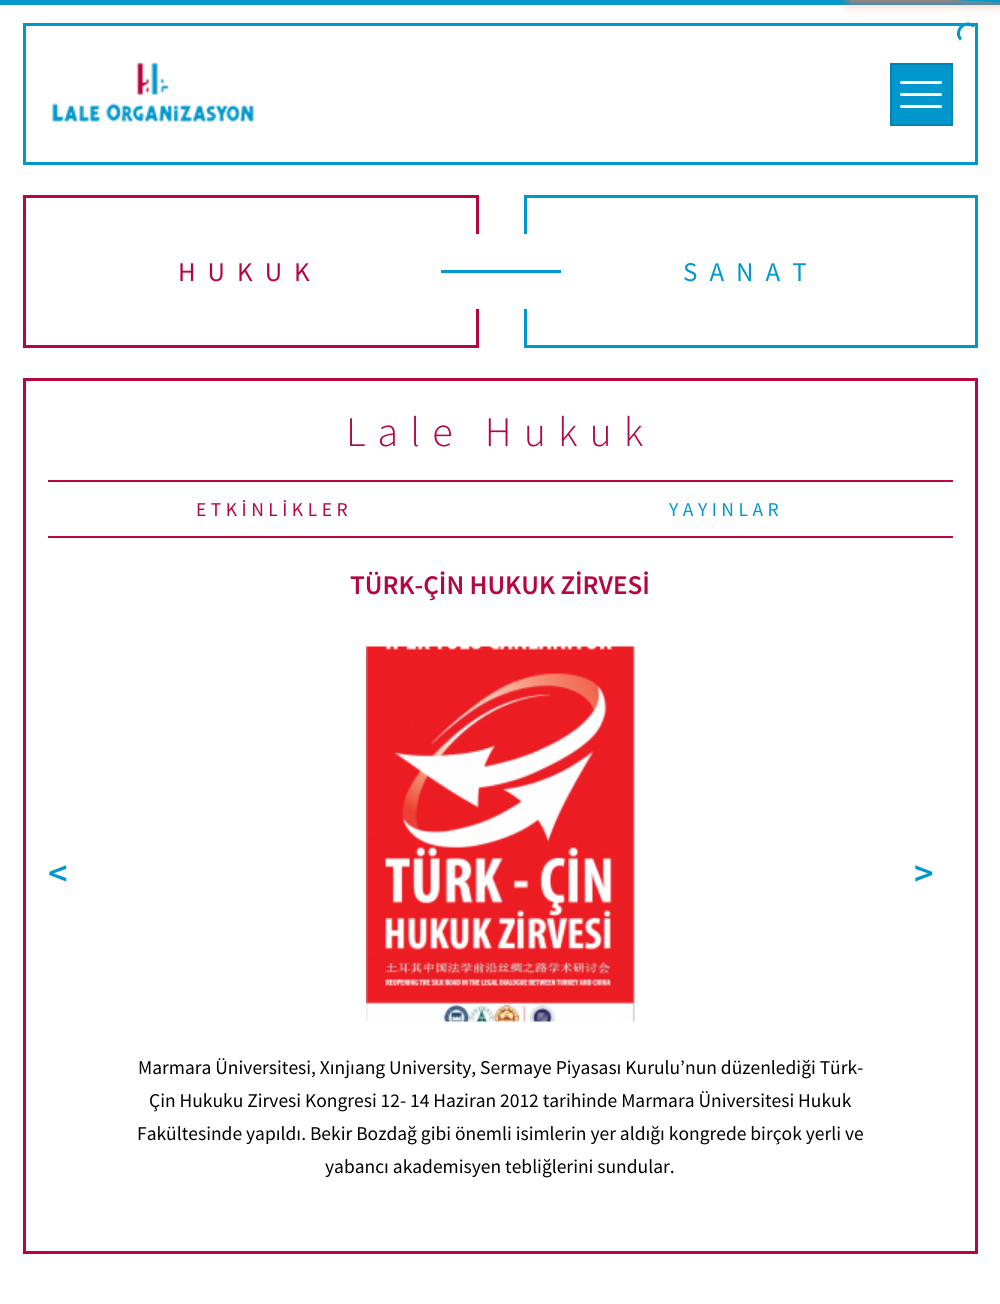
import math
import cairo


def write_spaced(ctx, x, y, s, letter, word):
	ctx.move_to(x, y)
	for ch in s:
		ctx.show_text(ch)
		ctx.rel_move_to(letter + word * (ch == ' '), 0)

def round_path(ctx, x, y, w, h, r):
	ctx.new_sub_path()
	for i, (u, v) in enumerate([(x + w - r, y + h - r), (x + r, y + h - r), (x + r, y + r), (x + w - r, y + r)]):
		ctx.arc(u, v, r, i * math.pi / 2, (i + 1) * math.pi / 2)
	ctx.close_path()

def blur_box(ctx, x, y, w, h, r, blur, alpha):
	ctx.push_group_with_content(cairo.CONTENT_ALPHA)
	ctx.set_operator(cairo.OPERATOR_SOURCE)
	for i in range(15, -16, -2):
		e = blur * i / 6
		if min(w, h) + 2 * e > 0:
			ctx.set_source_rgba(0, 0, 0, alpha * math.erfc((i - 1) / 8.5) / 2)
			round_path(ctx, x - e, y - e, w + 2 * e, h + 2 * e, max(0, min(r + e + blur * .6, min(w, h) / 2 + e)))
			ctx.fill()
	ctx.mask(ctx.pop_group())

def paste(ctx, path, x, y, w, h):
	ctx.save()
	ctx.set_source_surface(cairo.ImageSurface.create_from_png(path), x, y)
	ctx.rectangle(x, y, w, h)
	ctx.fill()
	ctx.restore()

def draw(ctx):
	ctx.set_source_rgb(1, 1, 1)
	ctx.paint()
	ctx.set_source_rgb(0, 0.592, 0.804)
	ctx.rectangle(0, 0, 1000, 5)
	ctx.fill()
	ctx.save()
	ctx.set_fill_rule(cairo.FILL_RULE_EVEN_ODD)
	ctx.new_path()
	ctx.move_to(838, 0)
	ctx.line_to(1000, 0)
	ctx.line_to(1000, 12)
	ctx.line_to(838, 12)
	ctx.close_path()
	ctx.move_to(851, -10)
	ctx.line_to(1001, -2)
	ctx.line_to(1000.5, 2.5)
	ctx.line_to(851, -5.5)
	ctx.close_path()
	ctx.clip()
	ctx.set_source_rgb(0.922, 0.478, 0.333)
	blur_box(ctx, 851, -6, 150, 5, 0, 4, 1)
	ctx.restore()
	ctx.save()
	ctx.set_fill_rule(cairo.FILL_RULE_EVEN_ODD)
	ctx.new_path()
	ctx.move_to(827, 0)
	ctx.line_to(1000, 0)
	ctx.line_to(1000, 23)
	ctx.line_to(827, 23)
	ctx.close_path()
	ctx.move_to(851, -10)
	ctx.line_to(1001, -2)
	ctx.line_to(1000.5, 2.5)
	ctx.line_to(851, -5.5)
	ctx.close_path()
	ctx.clip()
	ctx.set_source_rgb(0.922, 0.478, 0.333)
	blur_box(ctx, 851, -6, 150, 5, 0, 7.5, 1)
	ctx.restore()
	ctx.rectangle(24.5, 24.5, 952, 139)
	ctx.set_line_width(3)
	ctx.stroke()
	ctx.new_path()
	ctx.move_to(961, 39.5)
	ctx.curve_to(953, 31, 965.5, 18.5, 974, 26.5)
	ctx.stroke()
	paste(ctx, 'media/1.png', 52, 62, 202, 60)
	ctx.rectangle(891, 64, 61, 61)
	ctx.fill_preserve()
	ctx.set_source_rgb(0, 0.518, 0.706)
	ctx.set_line_width(2)
	ctx.stroke()
	ctx.set_source_rgb(1, 1, 1)
	round_path(ctx, 900, 81, 42, 3, 1.5)
	ctx.fill()
	round_path(ctx, 900, 93, 42, 3, 1.5)
	ctx.fill()
	round_path(ctx, 900, 105, 42, 3, 1.5)
	ctx.fill()
	ctx.rectangle(24.5, 196.5, 453, 150)
	ctx.set_source_rgb(0.71, 0.027, 0.259)
	ctx.set_line_width(3)
	ctx.stroke()
	ctx.rectangle(525.5, 196.5, 451, 150)
	ctx.set_source_rgb(0, 0.592, 0.804)
	ctx.stroke()
	ctx.set_source_rgb(1, 1, 1)
	ctx.rectangle(476, 234, 51, 75)
	ctx.fill()
	ctx.set_source_rgb(0, 0.592, 0.804)
	ctx.rectangle(441, 270, 120, 3)
	ctx.fill()
	ctx.select_font_face('Source Sans Pro')
	ctx.set_font_size(27)
	ctx.set_source_rgb(0.71, 0.027, 0.259)
	write_spaced(ctx, 178, 281, 'HUKUK', 12, 0)
	ctx.set_source_rgb(0, 0.592, 0.804)
	write_spaced(ctx, 683, 281, 'SANAT', 12, 0)
	ctx.rectangle(24.5, 379.5, 952, 873)
	ctx.set_source_rgb(0.71, 0.027, 0.259)
	ctx.stroke()
	ctx.rectangle(48, 480, 905, 2)
	ctx.fill()
	ctx.select_font_face('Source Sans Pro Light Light')
	ctx.set_font_size(42)
	write_spaced(ctx, 346, 446, 'Lale Hukuk', 12, 0)
	ctx.rectangle(48, 536, 905, 2)
	ctx.fill()
	ctx.select_font_face('Source Sans Pro')
	ctx.set_font_size(19.5)
	write_spaced(ctx, 196, 516, 'ETKİNLİKLER', 4.5, 0)
	ctx.set_source_rgb(0, 0.592, 0.804)
	write_spaced(ctx, 669, 516, 'YAYINLAR', 4.5, 0)
	ctx.select_font_face('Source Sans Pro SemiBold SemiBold')
	ctx.set_font_size(27)
	ctx.set_source_rgb(0.71, 0.027, 0.259)
	ctx.move_to(350, 594)
	ctx.show_text('TÜRK-ÇİN HUKUK ZİRVESİ')
	ctx.set_font_size(38)
	ctx.set_source_rgb(0, 0.592, 0.804)
	ctx.move_to(48, 886)
	ctx.show_text('<')
	ctx.move_to(914, 886)
	ctx.show_text('>')
	paste(ctx, 'media/2.png', 366, 646, 269, 376)
	ctx.select_font_face('Source Sans Pro')
	ctx.set_font_size(19.5)
	ctx.set_source_rgb(0, 0, 0)
	for x, y, s in [
		(138, 1074, 'Marmara Üniversitesi, Xınjıang University, Sermaye Piyasası Kurulu’nun düzenlediği Türk-'),
		(149, 1107, 'Çin Hukuku Zirvesi Kongresi 12- 14 Haziran 2012 tarihinde Marmara Üniversitesi Hukuk'),
		(137, 1140, 'Fakültesinde yapıldı. Bekir Bozdağ gibi önemli isimlerin yer aldığı kongrede birçok yerli ve'),
		(325, 1173, 'yabancı akademisyen tebliğlerini sundular.'),
	]:
		ctx.move_to(x, y)
		ctx.show_text(s)


surface = cairo.ImageSurface(cairo.FORMAT_RGB24, 1000, 1304)
ctx = cairo.Context(surface)
options = cairo.FontOptions()
options.set_hint_metrics(cairo.HINT_METRICS_OFF)
options.set_hint_style(cairo.HINT_STYLE_NONE)
ctx.set_font_options(options)
ctx.set_miter_limit(4)
draw(ctx)
surface.write_to_png('image.png')
